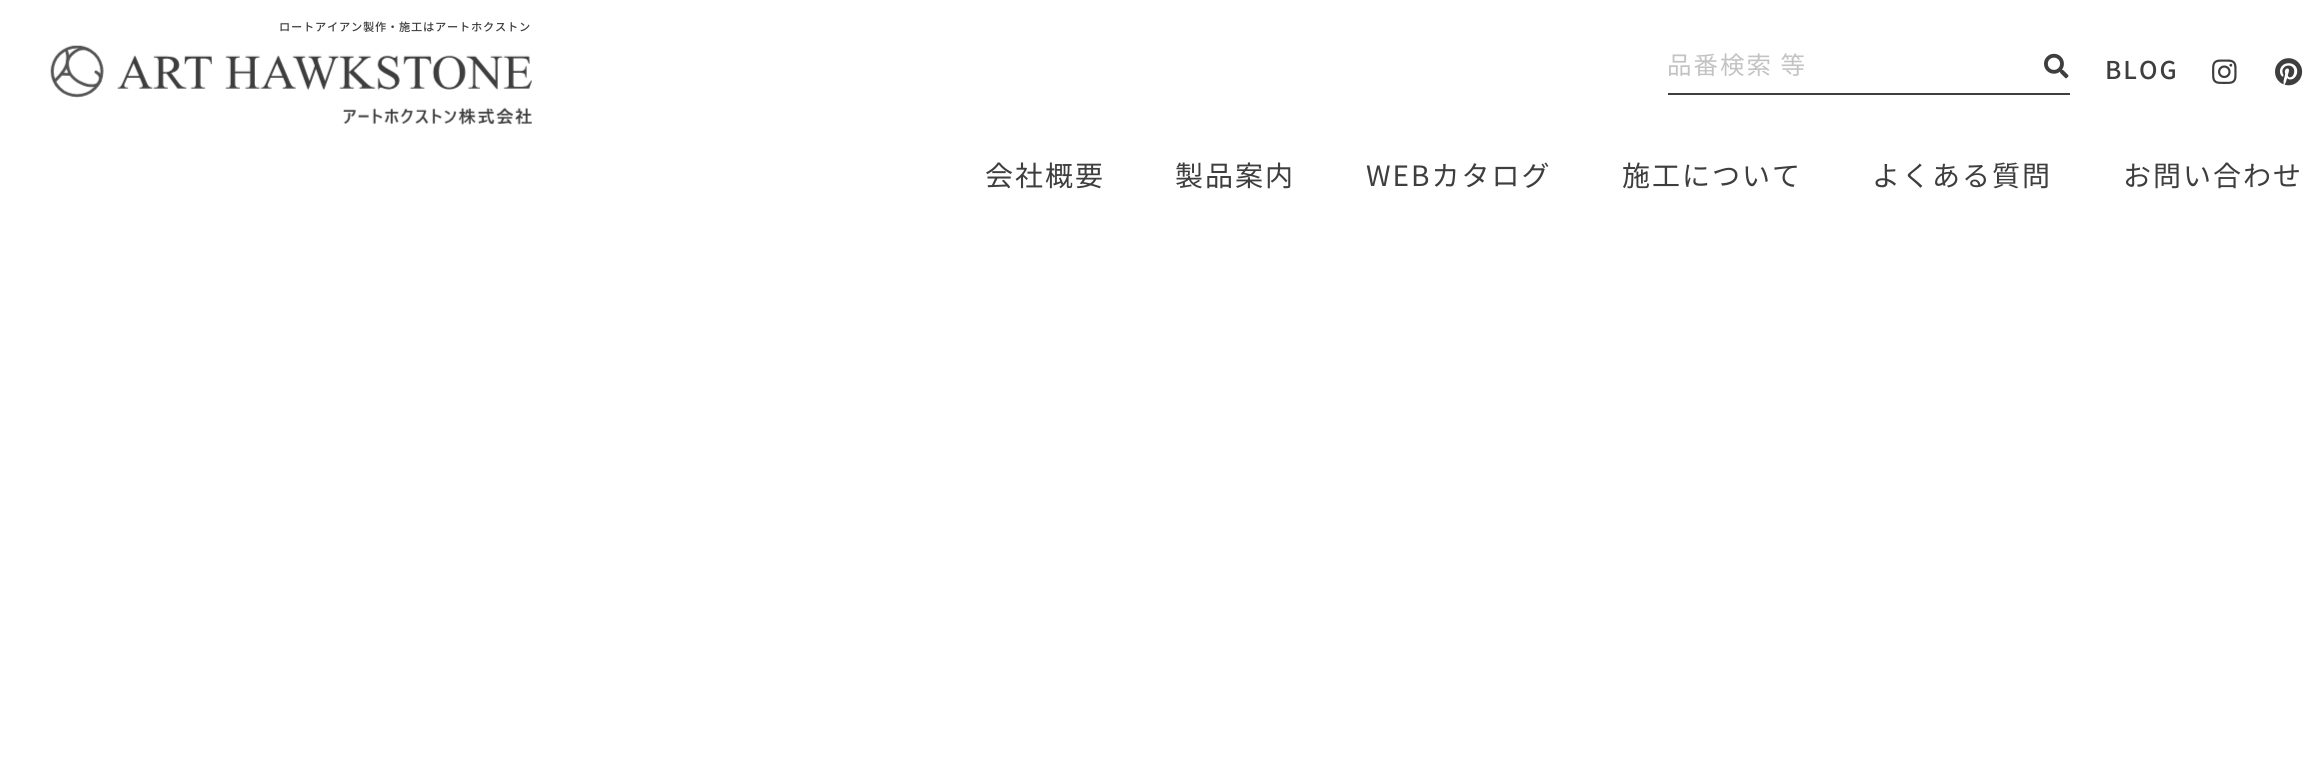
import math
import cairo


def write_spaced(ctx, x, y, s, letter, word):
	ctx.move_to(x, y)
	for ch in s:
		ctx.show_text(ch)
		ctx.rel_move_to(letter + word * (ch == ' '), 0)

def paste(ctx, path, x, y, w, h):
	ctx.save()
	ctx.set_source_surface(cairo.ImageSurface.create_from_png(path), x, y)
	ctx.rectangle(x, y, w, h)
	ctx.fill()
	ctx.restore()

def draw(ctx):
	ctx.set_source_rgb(1, 1, 1)
	ctx.paint()
	ctx.select_font_face('Noto Sans JP Medium')
	ctx.set_font_size(11.2)
	ctx.set_source_rgb(0.243, 0.243, 0.243)
	write_spaced(ctx, 279, 31, 'ロートアイアン製作・施工はアートホクストン', 0.8, 0)
	paste(ctx, 'media/1.png', 50, 45, 482, 80)
	ctx.rectangle(1668, 93, 402, 2)
	ctx.fill()
	ctx.select_font_face('Noto Sans JP')
	ctx.set_font_size(24.5)
	ctx.set_source_rgb(0.765, 0.765, 0.765)
	write_spaced(ctx, 1667, 74, '品番検索 等', 2, 0)
	paste(ctx, 'media/2.png', 2044, 53, 25, 26)
	ctx.select_font_face('Noto Sans JP Medium')
	ctx.set_source_rgb(0.243, 0.243, 0.243)
	write_spaced(ctx, 2105, 79, 'BLOG', 2, 0)
	paste(ctx, 'media/3.png', 2212, 59, 25, 25)
	paste(ctx, 'media/4.png', 2275, 58, 28, 28)
	ctx.select_font_face('Noto Sans JP')
	ctx.set_font_size(28)
	for x, y, s in [
		(985, 186, '会社概要'),
		(1175, 186, '製品案内'),
		(1366, 186, 'WEBカタログ'),
		(1622, 186, '施工について'),
		(1872, 186, 'よくある質問'),
		(2123, 186, 'お問い合わせ'),
	]:
		write_spaced(ctx, x, y, s, 2, 0)


surface = cairo.ImageSurface(cairo.FORMAT_RGB24, 2319, 760)
ctx = cairo.Context(surface)
options = cairo.FontOptions()
options.set_hint_metrics(cairo.HINT_METRICS_OFF)
options.set_hint_style(cairo.HINT_STYLE_NONE)
ctx.set_font_options(options)
ctx.set_miter_limit(4)
draw(ctx)
surface.write_to_png('image.png')
